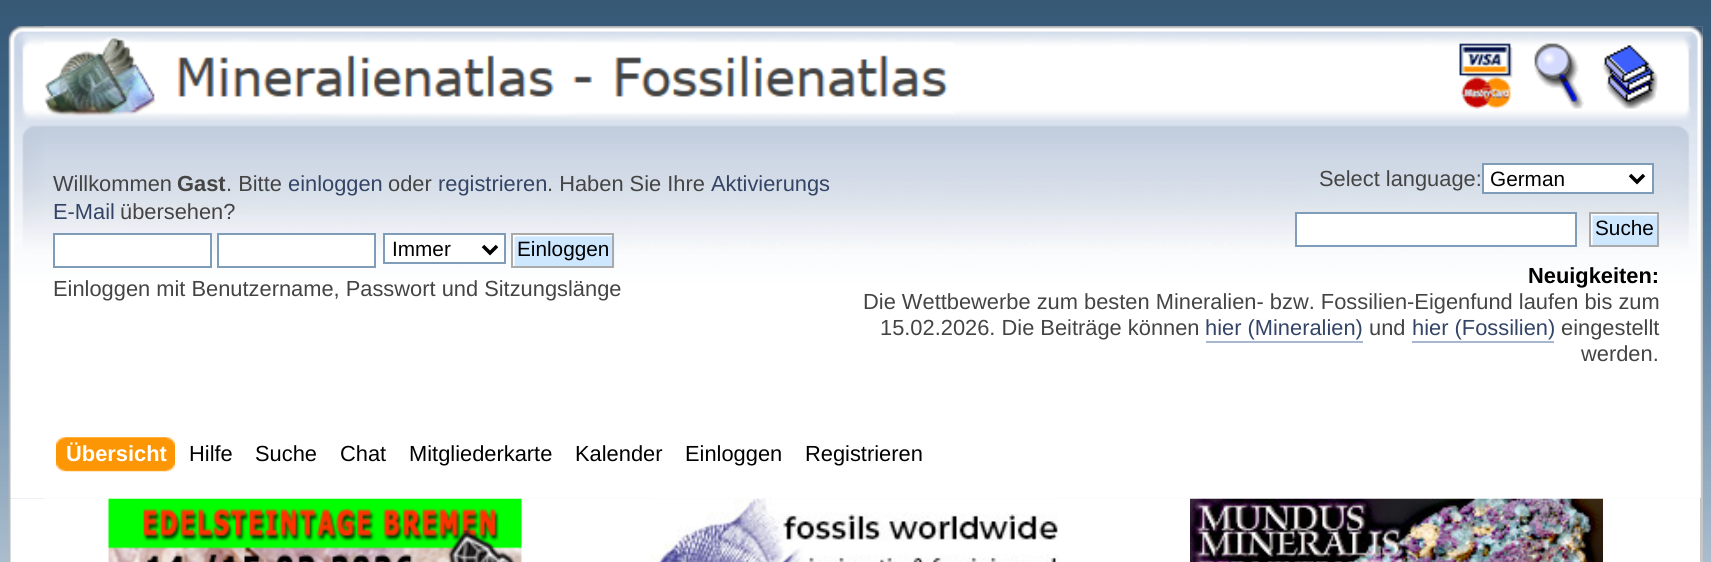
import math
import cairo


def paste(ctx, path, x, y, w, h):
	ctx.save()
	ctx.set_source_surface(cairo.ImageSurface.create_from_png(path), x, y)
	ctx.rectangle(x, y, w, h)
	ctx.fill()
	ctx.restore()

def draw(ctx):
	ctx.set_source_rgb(1, 1, 1)
	ctx.paint()
	paste(ctx, 'media/1.png', 0, 0, 1711, 562)
	paste(ctx, 'media/2.png', 8, 26, 1695, 473)
	paste(ctx, 'media/3.png', 44, 26, 1659, 473)
	paste(ctx, 'media/4.png', 44, 36, 910, 80)
	paste(ctx, 'media/5.png', 1459, 43, 54, 66)
	paste(ctx, 'media/6.png', 1534, 43, 50, 66)
	paste(ctx, 'media/7.png', 1602, 45, 56, 64)
	ctx.select_font_face('Liberation Sans')
	ctx.set_font_size(21.85)
	ctx.set_source_rgb(0.267, 0.267, 0.267)
	ctx.move_to(53, 191)
	ctx.show_text('Willkommen')
	ctx.select_font_face('Liberation Sans', cairo.FONT_SLANT_NORMAL, cairo.FONT_WEIGHT_BOLD)
	ctx.move_to(177, 191)
	ctx.show_text('Gast')
	ctx.select_font_face('Liberation Sans')
	ctx.move_to(226, 191)
	ctx.show_text('. Bitte')
	ctx.set_source_rgb(0.2, 0.267, 0.4)
	ctx.move_to(288, 191)
	ctx.show_text('einloggen')
	ctx.set_source_rgb(0.267, 0.267, 0.267)
	ctx.move_to(388, 191)
	ctx.show_text('oder')
	ctx.set_source_rgb(0.2, 0.267, 0.4)
	ctx.move_to(438, 191)
	ctx.show_text('registrieren')
	ctx.set_source_rgb(0.267, 0.267, 0.267)
	ctx.move_to(547, 191)
	ctx.show_text('. Haben Sie Ihre')
	ctx.set_source_rgb(0.2, 0.267, 0.4)
	ctx.move_to(711, 191)
	ctx.show_text('Aktivierungs')
	ctx.move_to(53, 219)
	ctx.show_text('E-Mail')
	ctx.set_source_rgb(0.267, 0.267, 0.267)
	ctx.move_to(120, 219)
	ctx.show_text('übersehen?')
	ctx.set_source_rgb(1, 1, 1)
	ctx.rectangle(54, 234, 157, 33)
	ctx.fill_preserve()
	ctx.set_source_rgb(0.498, 0.616, 0.725)
	ctx.stroke()
	ctx.set_source_rgb(1, 1, 1)
	ctx.rectangle(218, 234, 157, 33)
	ctx.fill_preserve()
	ctx.set_source_rgb(0.498, 0.616, 0.725)
	ctx.stroke()
	ctx.set_source_rgb(1, 1, 1)
	ctx.rectangle(384, 234, 121, 29)
	ctx.fill_preserve()
	ctx.set_source_rgb(0.498, 0.616, 0.725)
	ctx.stroke()
	ctx.new_path()
	ctx.move_to(483, 246)
	ctx.line_to(490, 253)
	ctx.line_to(497, 246)
	ctx.set_source_rgb(0, 0, 0)
	ctx.set_line_width(3.5)
	ctx.stroke()
	ctx.set_font_size(20.75)
	ctx.move_to(392, 256)
	ctx.show_text('Immer')
	paste(ctx, 'media/8.png', 513, 234, 102, 34)
	ctx.rectangle(512, 234, 101, 33)
	ctx.set_source_rgb(0.667, 0.667, 0.667)
	ctx.set_line_width(2)
	ctx.stroke()
	ctx.set_source_rgb(0, 0, 0)
	ctx.move_to(517, 256)
	ctx.show_text('Einloggen')
	ctx.set_font_size(21.85)
	ctx.set_source_rgb(0.267, 0.267, 0.267)
	ctx.move_to(53, 296)
	ctx.show_text('Einloggen mit Benutzername, Passwort und Sitzungslänge')
	ctx.move_to(1319, 186)
	ctx.show_text('Select language:')
	ctx.set_source_rgb(1, 1, 1)
	ctx.rectangle(1483, 164, 170, 29)
	ctx.fill_preserve()
	ctx.set_source_rgb(0.498, 0.616, 0.725)
	ctx.stroke()
	ctx.new_path()
	ctx.move_to(1630, 175)
	ctx.line_to(1637, 182)
	ctx.line_to(1644, 175)
	ctx.set_source_rgb(0, 0, 0)
	ctx.set_line_width(3.5)
	ctx.stroke()
	ctx.set_font_size(20.75)
	ctx.move_to(1490, 186)
	ctx.show_text('German')
	ctx.set_source_rgb(1, 1, 1)
	ctx.rectangle(1296, 213, 280, 33)
	ctx.fill_preserve()
	ctx.set_source_rgb(0.498, 0.616, 0.725)
	ctx.set_line_width(2)
	ctx.stroke()
	paste(ctx, 'media/9.png', 1591, 214, 66, 31)
	ctx.rectangle(1590, 213, 68, 33)
	ctx.set_source_rgb(0.667, 0.667, 0.667)
	ctx.stroke()
	ctx.set_source_rgb(0, 0, 0)
	ctx.move_to(1595, 235)
	ctx.show_text('Suche')
	ctx.select_font_face('Liberation Sans', cairo.FONT_SLANT_NORMAL, cairo.FONT_WEIGHT_BOLD)
	ctx.set_font_size(21.85)
	ctx.move_to(1528, 283)
	ctx.show_text('Neuigkeiten:')
	ctx.select_font_face('Liberation Sans')
	ctx.set_source_rgb(0.267, 0.267, 0.267)
	ctx.move_to(863, 309)
	ctx.show_text('Die Wettbewerbe zum besten Mineralien- bzw. Fossilien-Eigenfund laufen bis zum')
	ctx.move_to(880, 335)
	ctx.show_text('15.02.2026. Die Beiträge können')
	ctx.set_source_rgb(0.2, 0.267, 0.4)
	ctx.move_to(1205, 335)
	ctx.show_text('hier (Mineralien)')
	ctx.set_source_rgb(0.659, 0.714, 0.812)
	ctx.rectangle(1206, 341, 157, 2)
	ctx.fill()
	ctx.set_source_rgb(0.267, 0.267, 0.267)
	ctx.move_to(1369, 335)
	ctx.show_text('und')
	ctx.set_source_rgb(0.2, 0.267, 0.4)
	ctx.move_to(1412, 335)
	ctx.show_text('hier (Fossilien)')
	ctx.set_source_rgb(0.659, 0.714, 0.812)
	ctx.rectangle(1412, 341, 142, 2)
	ctx.fill()
	ctx.set_source_rgb(0.267, 0.267, 0.267)
	ctx.move_to(1561, 335)
	ctx.show_text('eingestellt')
	ctx.move_to(1581, 361)
	ctx.show_text('werden.')
	paste(ctx, 'media/10.png', 64, 437, 111, 35)
	paste(ctx, 'media/11.png', 56, 437, 111, 35)
	ctx.select_font_face('Liberation Sans', cairo.FONT_SLANT_NORMAL, cairo.FONT_WEIGHT_BOLD)
	ctx.set_source_rgb(1, 1, 1)
	ctx.move_to(66, 461)
	ctx.show_text('Übersicht')
	ctx.select_font_face('Liberation Sans')
	ctx.set_source_rgb(0, 0, 0)
	for x, y, s in [
		(189, 461, 'Hilfe'),
		(255, 461, 'Suche'),
		(340, 461, 'Chat'),
		(409, 461, 'Mitgliederkarte'),
		(575, 461, 'Kalender'),
		(685, 461, 'Einloggen'),
		(805, 461, 'Registrieren'),
	]:
		ctx.move_to(x, y)
		ctx.show_text(s)
	paste(ctx, 'media/12.png', 8, 498, 1692, 64)
	ctx.set_source_rgb(0.776, 0.776, 0.776)
	ctx.rectangle(1700, 498, 3, 64)
	ctx.fill()
	paste(ctx, 'media/13.png', 108, 498, 414, 64)
	paste(ctx, 'media/14.png', 650, 498, 409, 64)
	paste(ctx, 'media/15.png', 1190, 498, 413, 64)


surface = cairo.ImageSurface(cairo.FORMAT_RGB24, 1711, 562)
ctx = cairo.Context(surface)
options = cairo.FontOptions()
options.set_hint_metrics(cairo.HINT_METRICS_OFF)
options.set_hint_style(cairo.HINT_STYLE_NONE)
ctx.set_font_options(options)
ctx.set_miter_limit(4)
draw(ctx)
surface.write_to_png('image.png')
